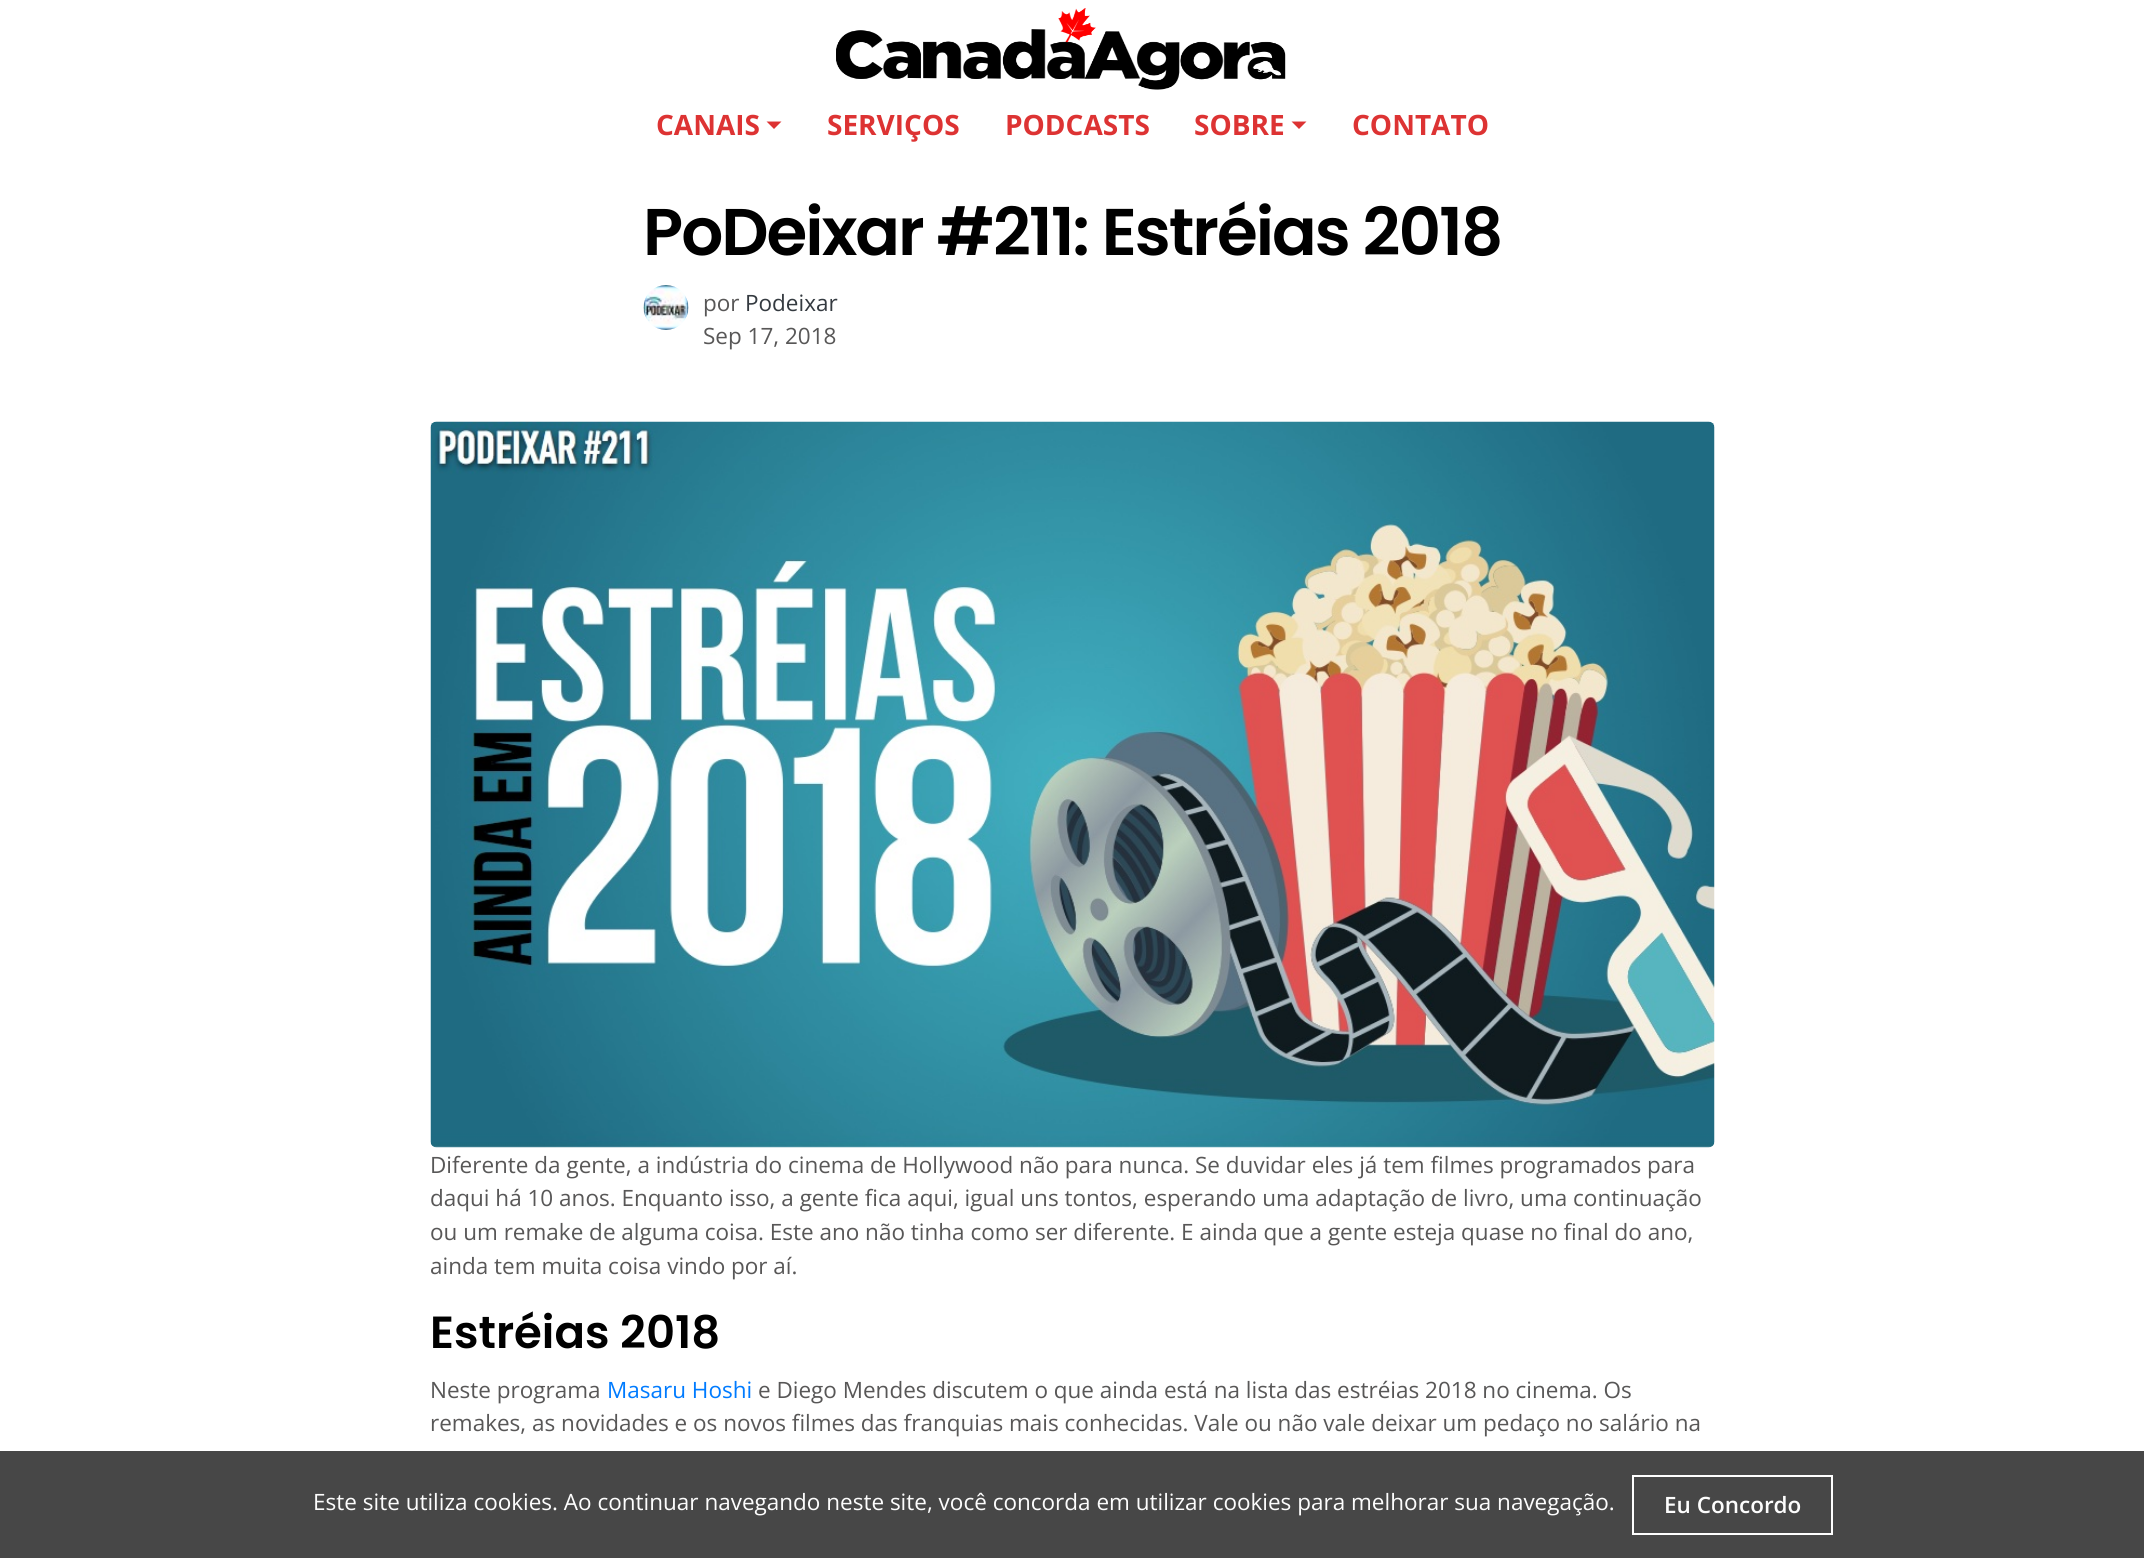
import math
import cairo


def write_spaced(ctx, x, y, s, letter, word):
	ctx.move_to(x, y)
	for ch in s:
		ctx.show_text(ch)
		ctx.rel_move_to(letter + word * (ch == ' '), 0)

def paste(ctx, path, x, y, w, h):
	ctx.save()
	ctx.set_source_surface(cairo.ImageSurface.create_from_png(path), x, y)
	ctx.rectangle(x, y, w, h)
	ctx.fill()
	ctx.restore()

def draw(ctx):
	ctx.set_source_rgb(1, 1, 1)
	ctx.paint()
	paste(ctx, 'media/1.png', 836, 8, 450, 82)
	ctx.select_font_face('Open Sans', cairo.FONT_SLANT_NORMAL, cairo.FONT_WEIGHT_BOLD)
	ctx.set_font_size(28)
	ctx.set_source_rgb(0.867, 0.2, 0.2)
	ctx.move_to(656, 135)
	ctx.show_text('CANAIS')
	ctx.new_path()
	ctx.move_to(766.5, 121.5)
	ctx.line_to(781.5, 121.5)
	ctx.line_to(774, 129)
	ctx.close_path()
	ctx.fill()
	for x, y, s in [
		(827, 135, 'SERVIÇOS'),
		(1005, 135, 'PODCASTS'),
		(1194, 135, 'SOBRE'),
	]:
		ctx.move_to(x, y)
		ctx.show_text(s)
	ctx.new_path()
	ctx.move_to(1291.5, 121.5)
	ctx.line_to(1306.5, 121.5)
	ctx.line_to(1299, 129)
	ctx.close_path()
	ctx.fill()
	ctx.move_to(1352, 135)
	ctx.show_text('CONTATO')
	ctx.select_font_face('Poppins SemiBold')
	ctx.set_font_size(66)
	ctx.set_source_rgb(0, 0, 0)
	write_spaced(ctx, 643, 255, 'PoDeixar #211: Estréias 2018', -2, 0)
	paste(ctx, 'media/2.png', 643, 285, 46, 45)
	ctx.select_font_face('Open Sans')
	ctx.set_font_size(22.5)
	ctx.set_source_rgb(0.345, 0.341, 0.341)
	ctx.move_to(703, 311)
	ctx.show_text('por')
	ctx.set_source_rgb(0.204, 0.227, 0.251)
	ctx.move_to(745, 311)
	ctx.show_text('Podeixar')
	ctx.set_source_rgb(0.345, 0.341, 0.341)
	ctx.move_to(703, 344)
	ctx.show_text('Sep 17, 2018')
	paste(ctx, 'media/3.png', 430, 421, 1285, 727)
	for x, y, s in [
		(430, 1173, 'Diferente da gente, a indústria do cinema de Hollywood não para nunca. Se duvidar eles já tem filmes programados para'),
		(430, 1206, 'daqui há 10 anos. Enquanto isso, a gente fica aqui, igual uns tontos, esperando uma adaptação de livro, uma continuação'),
		(430, 1240, 'ou um remake de alguma coisa. Este ano não tinha como ser diferente. E ainda que a gente esteja quase no final do ano,'),
		(430, 1274, 'ainda tem muita coisa vindo por aí.'),
	]:
		ctx.move_to(x, y)
		ctx.show_text(s)
	ctx.select_font_face('Poppins SemiBold')
	ctx.set_font_size(45)
	ctx.set_source_rgb(0, 0, 0)
	ctx.move_to(430, 1348)
	ctx.show_text('Estréias 2018')
	ctx.select_font_face('Open Sans')
	ctx.set_font_size(22.5)
	ctx.set_source_rgb(0.345, 0.341, 0.341)
	ctx.move_to(430, 1398)
	ctx.show_text('Neste programa')
	ctx.set_source_rgb(0, 0.482, 1)
	ctx.move_to(607, 1398)
	ctx.show_text('Masaru Hoshi')
	ctx.set_source_rgb(0.345, 0.341, 0.341)
	ctx.move_to(758, 1398)
	ctx.show_text('e Diego Mendes discutem o que ainda está na lista das estréias 2018 no cinema. Os')
	ctx.move_to(430, 1431)
	ctx.show_text('remakes, as novidades e os novos filmes das franquias mais conhecidas. Vale ou não vale deixar um pedaço no salário na')
	ctx.set_source_rgb(0.278, 0.278, 0.278)
	ctx.rectangle(0, 1451, 2144, 107)
	ctx.fill()
	ctx.set_source_rgb(0.992, 0.992, 0.992)
	ctx.move_to(313, 1510)
	ctx.show_text('Este site utiliza cookies. Ao continuar navegando neste site, você concorda em utilizar cookies para melhorar sua navegação.')
	ctx.rectangle(1633, 1476, 199, 58)
	ctx.set_source_rgb(1, 1, 1)
	ctx.stroke()
	ctx.select_font_face('Open Sans SemiBold')
	ctx.set_source_rgb(0.992, 0.992, 0.992)
	ctx.move_to(1664, 1513)
	ctx.show_text('Eu Concordo')


surface = cairo.ImageSurface(cairo.FORMAT_RGB24, 2144, 1558)
ctx = cairo.Context(surface)
options = cairo.FontOptions()
options.set_hint_metrics(cairo.HINT_METRICS_OFF)
options.set_hint_style(cairo.HINT_STYLE_NONE)
ctx.set_font_options(options)
ctx.set_miter_limit(4)
draw(ctx)
surface.write_to_png('image.png')
